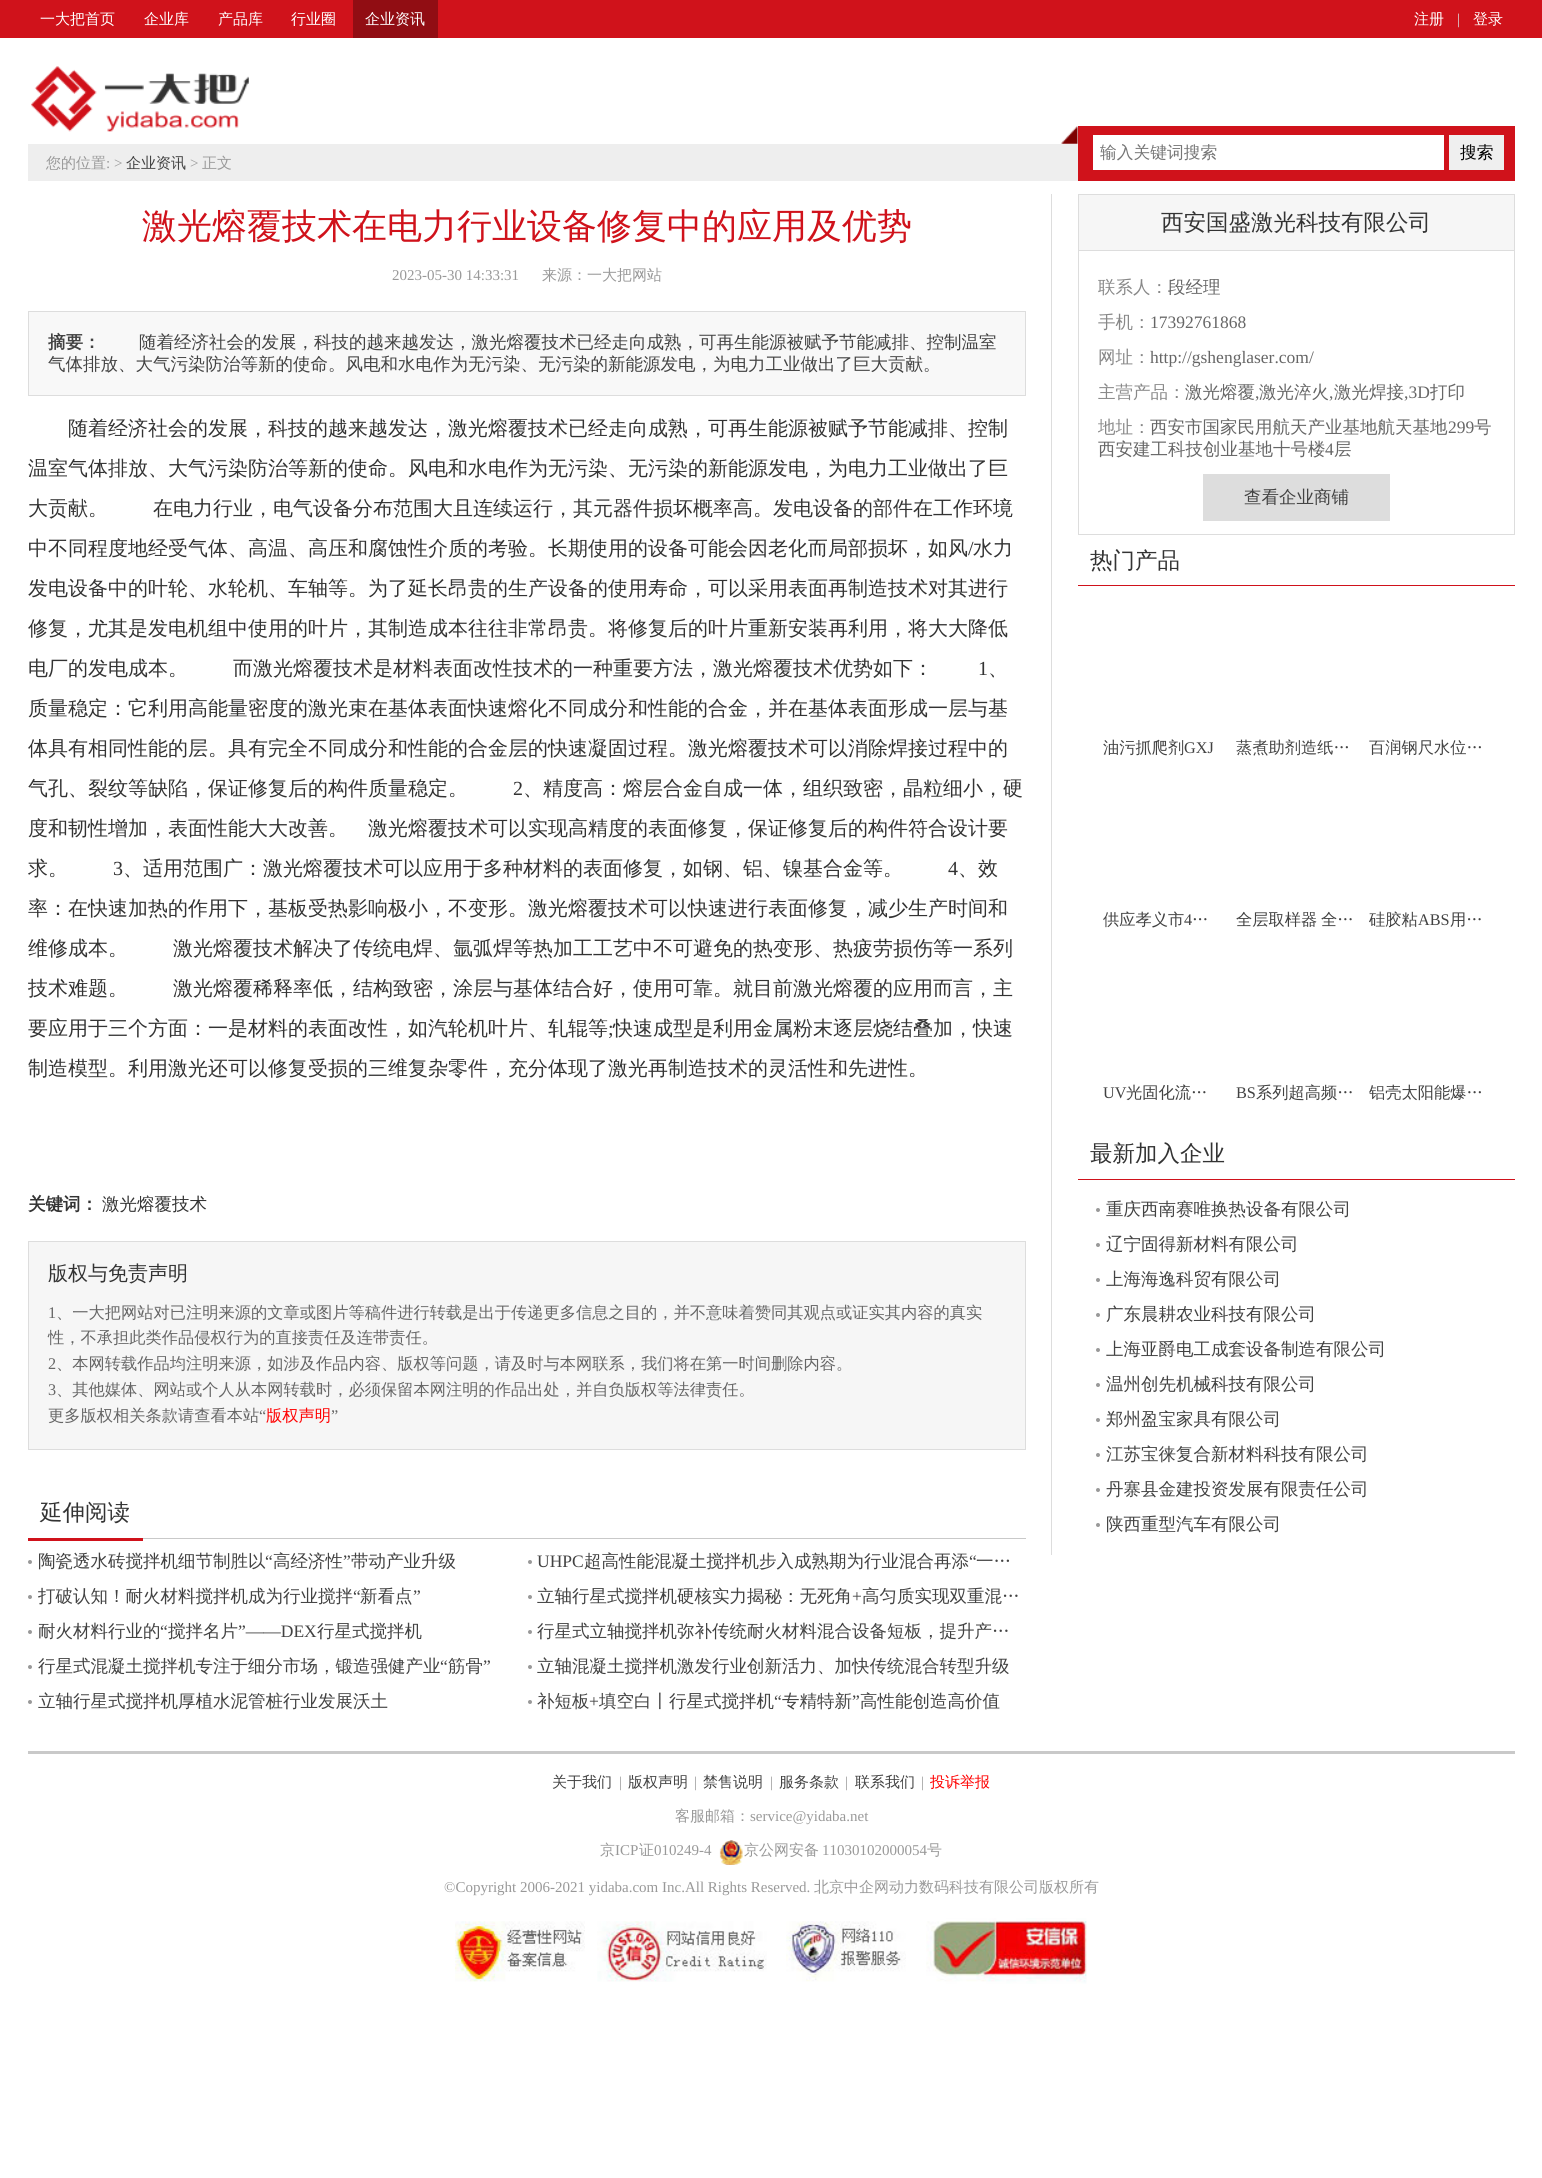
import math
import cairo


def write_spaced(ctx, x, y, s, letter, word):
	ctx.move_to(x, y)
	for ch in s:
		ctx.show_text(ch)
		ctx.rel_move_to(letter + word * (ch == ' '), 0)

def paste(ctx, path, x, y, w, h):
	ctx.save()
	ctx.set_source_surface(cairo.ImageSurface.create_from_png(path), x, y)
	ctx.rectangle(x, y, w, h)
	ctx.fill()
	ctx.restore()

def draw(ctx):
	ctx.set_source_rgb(1, 1, 1)
	ctx.paint()
	ctx.set_source_rgb(0.816, 0.071, 0.106)
	ctx.rectangle(0, 0, 1542, 38)
	ctx.fill()
	ctx.select_font_face('WenQuanYi Zen Hei Medium')
	ctx.set_font_size(15)
	ctx.set_source_rgb(1, 1, 1)
	for x, y, s in [
		(40, 24, '一大把首页'),
		(144, 24, '企业库'),
		(218, 24, '产品库'),
		(291, 24, '行业圈'),
	]:
		ctx.move_to(x, y)
		ctx.show_text(s)
	ctx.set_source_rgb(0.569, 0.051, 0.075)
	ctx.rectangle(353, 0, 85, 38)
	ctx.fill()
	ctx.set_source_rgb(1, 1, 1)
	ctx.move_to(365, 24)
	ctx.show_text('企业资讯')
	ctx.move_to(1414, 24)
	ctx.show_text('注册')
	ctx.select_font_face('Liberation Serif')
	ctx.set_source_rgb(0.867, 0.867, 0.867)
	ctx.move_to(1457, 24)
	ctx.show_text('|')
	ctx.select_font_face('WenQuanYi Zen Hei Medium')
	ctx.set_source_rgb(1, 1, 1)
	ctx.move_to(1473, 24)
	ctx.show_text('登录')
	paste(ctx, 'media/1.png', 31, 66, 218, 66)
	ctx.set_source_rgb(0.933, 0.933, 0.933)
	ctx.rectangle(28, 144, 1050, 37)
	ctx.fill()
	paste(ctx, 'media/2.png', 1061, 126, 17, 18)
	ctx.set_source_rgb(0.816, 0.071, 0.106)
	ctx.rectangle(1078, 126, 437, 55)
	ctx.fill()
	ctx.set_source_rgb(1, 1, 1)
	ctx.rectangle(1093, 135, 351, 35)
	ctx.fill()
	ctx.set_font_size(16.75)
	ctx.set_source_rgb(0.459, 0.459, 0.459)
	ctx.move_to(1100, 158)
	ctx.show_text('输入关键词搜索')
	ctx.set_source_rgb(0.937, 0.937, 0.937)
	ctx.rectangle(1449, 135, 55, 35)
	ctx.fill()
	ctx.set_source_rgb(0, 0, 0)
	ctx.move_to(1460, 158)
	ctx.show_text('搜索')
	ctx.set_font_size(15)
	ctx.set_source_rgb(0.6, 0.6, 0.6)
	ctx.move_to(46, 168)
	ctx.show_text('您的位置')
	ctx.select_font_face('Liberation Serif')
	ctx.move_to(106, 168)
	ctx.show_text(': >')
	ctx.select_font_face('WenQuanYi Zen Hei Medium')
	ctx.set_source_rgb(0.259, 0.259, 0.259)
	ctx.move_to(126, 168)
	ctx.show_text('企业资讯')
	ctx.select_font_face('Liberation Serif')
	ctx.set_source_rgb(0.6, 0.6, 0.6)
	ctx.move_to(190, 168)
	ctx.show_text('>')
	ctx.select_font_face('WenQuanYi Zen Hei Medium')
	ctx.move_to(202, 168)
	ctx.show_text('正文')
	ctx.set_font_size(35)
	ctx.set_source_rgb(0.816, 0.071, 0.106)
	ctx.move_to(142, 238)
	ctx.show_text('激光熔覆技术在电力行业设备修复中的应用及优势')
	ctx.select_font_face('Liberation Serif')
	ctx.set_font_size(15)
	ctx.set_source_rgb(0.6, 0.6, 0.6)
	ctx.move_to(392, 280)
	ctx.show_text('2023-05-30 14:33:31')
	ctx.select_font_face('WenQuanYi Zen Hei Medium')
	ctx.move_to(542, 280)
	ctx.show_text('来源：一大把网站')
	ctx.set_source_rgb(0.969, 0.969, 0.969)
	ctx.rectangle(28.5, 311.5, 997, 84)
	ctx.fill_preserve()
	ctx.set_source_rgb(0.867, 0.867, 0.867)
	ctx.set_line_width(1)
	ctx.stroke()
	ctx.select_font_face('WenQuanYi Zen Hei', cairo.FONT_SLANT_NORMAL, cairo.FONT_WEIGHT_BOLD)
	ctx.set_font_size(17.5)
	ctx.set_source_rgb(0.259, 0.259, 0.259)
	ctx.move_to(48, 348)
	ctx.show_text('摘要：')
	ctx.select_font_face('WenQuanYi Zen Hei Medium')
	ctx.move_to(139, 348)
	ctx.show_text('随着经济社会的发展，科技的越来越发达，激光熔覆技术已经走向成熟，可再生能源被赋予节能减排、控制温室')
	ctx.move_to(48, 370)
	ctx.show_text('气体排放、大气污染防治等新的使命。风电和水电作为无污染、无污染的新能源发电，为电力工业做出了巨大贡献。')
	ctx.set_font_size(20)
	ctx.set_source_rgb(0.2, 0.2, 0.2)
	for x, y, s in [
		(68, 435, '随着经济社会的发展，科技的越来越发达，激光熔覆技术已经走向成熟，可再生能源被赋予节能减排、控制'),
		(28, 475, '温室气体排放、大气污染防治等新的使命。风电和水电作为无污染、无污染的新能源发电，为电力工业做出了巨'),
		(28, 515, '大贡献。'),
		(153, 515, '在电力行业，电气设备分布范围大且连续运行，其元器件损坏概率高。发电设备的部件在工作环境'),
		(28, 555, '中不同程度地经受气体、高温、高压和腐蚀性介质的考验。长期使用的设备可能会因老化而局部损坏，如风'),
	]:
		ctx.move_to(x, y)
		ctx.show_text(s)
	ctx.select_font_face('Liberation Serif')
	ctx.move_to(968, 555)
	ctx.show_text('/')
	ctx.select_font_face('WenQuanYi Zen Hei Medium')
	for x, y, s in [
		(973, 555, '水力'),
		(28, 595, '发电设备中的叶轮、水轮机、车轴等。为了延长昂贵的生产设备的使用寿命，可以采用表面再制造技术对其进行'),
		(28, 635, '修复，尤其是发电机组中使用的叶片，其制造成本往往非常昂贵。将修复后的叶片重新安装再利用，将大大降低'),
		(28, 675, '电厂的发电成本。'),
		(233, 675, '而激光熔覆技术是材料表面改性技术的一种重要方法，激光熔覆技术优势如下：'),
	]:
		ctx.move_to(x, y)
		ctx.show_text(s)
	ctx.select_font_face('Liberation Serif')
	ctx.move_to(978, 675)
	ctx.show_text('1')
	ctx.select_font_face('WenQuanYi Zen Hei Medium')
	for x, y, s in [
		(988, 675, '、'),
		(28, 715, '质量稳定：它利用高能量密度的激光束在基体表面快速熔化不同成分和性能的合金，并在基体表面形成一层与基'),
		(28, 755, '体具有相同性能的层。具有完全不同成分和性能的合金层的快速凝固过程。激光熔覆技术可以消除焊接过程中的'),
		(28, 795, '气孔、裂纹等缺陷，保证修复后的构件质量稳定。'),
	]:
		ctx.move_to(x, y)
		ctx.show_text(s)
	ctx.select_font_face('Liberation Serif')
	ctx.move_to(513, 795)
	ctx.show_text('2')
	ctx.select_font_face('WenQuanYi Zen Hei Medium')
	for x, y, s in [
		(523, 795, '、精度高：熔层合金自成一体，组织致密，晶粒细小，硬'),
		(28, 835, '度和韧性增加，表面性能大大改善。　激光熔覆技术可以实现高精度的表面修复，保证修复后的构件符合设计要'),
		(28, 875, '求。'),
	]:
		ctx.move_to(x, y)
		ctx.show_text(s)
	ctx.select_font_face('Liberation Serif')
	ctx.move_to(113, 875)
	ctx.show_text('3')
	ctx.select_font_face('WenQuanYi Zen Hei Medium')
	ctx.move_to(123, 875)
	ctx.show_text('、适用范围广：激光熔覆技术可以应用于多种材料的表面修复，如钢、铝、镍基合金等。')
	ctx.select_font_face('Liberation Serif')
	ctx.move_to(948, 875)
	ctx.show_text('4')
	ctx.select_font_face('WenQuanYi Zen Hei Medium')
	for x, y, s in [
		(958, 875, '、效'),
		(28, 915, '率：在快速加热的作用下，基板受热影响极小，不变形。激光熔覆技术可以快速进行表面修复，减少生产时间和'),
		(28, 955, '维修成本。'),
		(173, 955, '激光熔覆技术解决了传统电焊、氩弧焊等热加工工艺中不可避免的热变形、热疲劳损伤等一系列'),
		(28, 995, '技术难题。'),
		(173, 995, '激光熔覆稀释率低，结构致密，涂层与基体结合好，使用可靠。就目前激光熔覆的应用而言，主'),
		(28, 1035, '要应用于三个方面：一是材料的表面改性，如汽轮机叶片、轧辊等'),
	]:
		ctx.move_to(x, y)
		ctx.show_text(s)
	ctx.select_font_face('Liberation Serif')
	ctx.move_to(608, 1035)
	ctx.show_text(';')
	ctx.select_font_face('WenQuanYi Zen Hei Medium')
	ctx.move_to(613, 1035)
	ctx.show_text('快速成型是利用金属粉末逐层烧结叠加，快速')
	ctx.move_to(28, 1075)
	ctx.show_text('制造模型。利用激光还可以修复受损的三维复杂零件，充分体现了激光再制造技术的灵活性和先进性。')
	ctx.select_font_face('WenQuanYi Zen Hei', cairo.FONT_SLANT_NORMAL, cairo.FONT_WEIGHT_BOLD)
	ctx.set_font_size(17.5)
	ctx.move_to(28, 1210)
	ctx.show_text('关键词：')
	ctx.select_font_face('WenQuanYi Zen Hei Medium')
	ctx.move_to(102, 1210)
	ctx.show_text('激光熔覆技术')
	ctx.set_source_rgb(0.961, 0.961, 0.961)
	ctx.rectangle(28.5, 1241.5, 997, 208)
	ctx.fill_preserve()
	ctx.set_source_rgb(0.867, 0.867, 0.867)
	ctx.stroke()
	ctx.set_font_size(20)
	ctx.set_source_rgb(0.2, 0.2, 0.2)
	ctx.move_to(48, 1280)
	ctx.show_text('版权与免责声明')
	ctx.select_font_face('Liberation Serif')
	ctx.set_font_size(16.25)
	ctx.set_source_rgb(0.4, 0.4, 0.4)
	ctx.move_to(48, 1318)
	ctx.show_text('1')
	ctx.select_font_face('WenQuanYi Zen Hei Medium')
	ctx.move_to(56, 1318)
	ctx.show_text('、一大把网站对已注明来源的文章或图片等稿件进行转载是出于传递更多信息之目的，并不意味着赞同其观点或证实其内容的真实')
	ctx.move_to(48, 1343)
	ctx.show_text('性，不承担此类作品侵权行为的直接责任及连带责任。')
	ctx.select_font_face('Liberation Serif')
	ctx.move_to(48, 1369)
	ctx.show_text('2')
	ctx.select_font_face('WenQuanYi Zen Hei Medium')
	ctx.move_to(56, 1369)
	ctx.show_text('、本网转载作品均注明来源，如涉及作品内容、版权等问题，请及时与本网联系，我们将在第一时间删除内容。')
	ctx.select_font_face('Liberation Serif')
	ctx.move_to(48, 1395)
	ctx.show_text('3')
	ctx.select_font_face('WenQuanYi Zen Hei Medium')
	ctx.move_to(56, 1395)
	ctx.show_text('、其他媒体、网站或个人从本网转载时，必须保留本网注明的作品出处，并自负版权等法律责任。')
	ctx.move_to(48, 1421)
	ctx.show_text('更多版权相关条款请查看本站')
	ctx.select_font_face('Liberation Serif')
	ctx.move_to(259, 1421)
	ctx.show_text('“')
	ctx.select_font_face('WenQuanYi Zen Hei Medium')
	ctx.set_source_rgb(1, 0, 0)
	ctx.move_to(266, 1421)
	ctx.show_text('版权声明')
	ctx.select_font_face('Liberation Serif')
	ctx.set_source_rgb(0.4, 0.4, 0.4)
	ctx.move_to(331, 1421)
	ctx.show_text('”')
	ctx.set_source_rgb(0.788, 0.788, 0.788)
	ctx.rectangle(143, 1538, 883, 1)
	ctx.fill()
	ctx.set_source_rgb(0.816, 0.071, 0.106)
	ctx.rectangle(28, 1538, 115, 3)
	ctx.fill()
	ctx.select_font_face('WenQuanYi Zen Hei Medium')
	ctx.set_font_size(22.5)
	ctx.set_source_rgb(0.2, 0.2, 0.2)
	ctx.move_to(40, 1520)
	ctx.show_text('延伸阅读')
	ctx.set_font_size(17.5)
	ctx.set_source_rgb(0.259, 0.259, 0.259)
	ctx.move_to(38, 1567)
	ctx.show_text('陶瓷透水砖搅拌机细节制胜以')
	ctx.select_font_face('Liberation Serif')
	ctx.move_to(265, 1567)
	ctx.show_text('“')
	ctx.select_font_face('WenQuanYi Zen Hei Medium')
	ctx.move_to(273, 1567)
	ctx.show_text('高经济性')
	ctx.select_font_face('Liberation Serif')
	ctx.move_to(343, 1567)
	ctx.show_text('”')
	ctx.select_font_face('WenQuanYi Zen Hei Medium')
	ctx.move_to(351, 1567)
	ctx.show_text('带动产业升级')
	ctx.set_source_rgb(0.6, 0.6, 0.6)
	ctx.new_path()
	ctx.arc(30, 1562, 2, 0, 2 * math.pi)
	ctx.fill()
	ctx.select_font_face('Liberation Serif')
	ctx.set_source_rgb(0.259, 0.259, 0.259)
	ctx.move_to(537, 1567)
	ctx.show_text('UHPC')
	ctx.select_font_face('WenQuanYi Zen Hei Medium')
	ctx.move_to(584, 1567)
	ctx.show_text('超高性能混凝土搅拌机步入成熟期为行业混合再添')
	ctx.select_font_face('Liberation Serif')
	ctx.move_to(969, 1567)
	ctx.show_text('“')
	ctx.set_source_rgb(0.6, 0.6, 0.6)
	ctx.new_path()
	ctx.arc(530, 1562, 2, 0, 2 * math.pi)
	ctx.fill()
	ctx.select_font_face('WenQuanYi Zen Hei Medium')
	ctx.set_source_rgb(0.259, 0.259, 0.259)
	ctx.move_to(976, 1567)
	ctx.show_text('一…')
	ctx.move_to(38, 1602)
	ctx.show_text('打破认知！耐火材料搅拌机成为行业搅拌')
	ctx.select_font_face('Liberation Serif')
	ctx.move_to(353, 1602)
	ctx.show_text('“')
	ctx.select_font_face('WenQuanYi Zen Hei Medium')
	ctx.move_to(360, 1602)
	ctx.show_text('新看点')
	ctx.select_font_face('Liberation Serif')
	ctx.move_to(413, 1602)
	ctx.show_text('”')
	ctx.set_source_rgb(0.6, 0.6, 0.6)
	ctx.new_path()
	ctx.arc(30, 1597, 2, 0, 2 * math.pi)
	ctx.fill()
	ctx.arc(530, 1597, 2, 0, 2 * math.pi)
	ctx.fill()
	ctx.select_font_face('WenQuanYi Zen Hei Medium')
	ctx.set_source_rgb(0.259, 0.259, 0.259)
	ctx.move_to(537, 1602)
	ctx.show_text('立轴行星式搅拌机硬核实力揭秘：无死角')
	ctx.select_font_face('Liberation Serif')
	ctx.move_to(852, 1602)
	ctx.show_text('+')
	ctx.select_font_face('WenQuanYi Zen Hei Medium')
	ctx.move_to(862, 1602)
	ctx.show_text('高匀质实现双重混…')
	ctx.set_source_rgb(0.6, 0.6, 0.6)
	ctx.new_path()
	ctx.arc(30, 1632, 2, 0, 2 * math.pi)
	ctx.fill()
	ctx.set_source_rgb(0.259, 0.259, 0.259)
	ctx.move_to(38, 1637)
	ctx.show_text('耐火材料行业的')
	ctx.select_font_face('Liberation Serif')
	ctx.move_to(160, 1637)
	ctx.show_text('“')
	ctx.select_font_face('WenQuanYi Zen Hei Medium')
	ctx.move_to(168, 1637)
	ctx.show_text('搅拌名片')
	ctx.select_font_face('Liberation Serif')
	ctx.move_to(238, 1637)
	ctx.show_text('”——DEX')
	ctx.select_font_face('WenQuanYi Zen Hei Medium')
	ctx.move_to(317, 1637)
	ctx.show_text('行星式搅拌机')
	ctx.set_source_rgb(0.6, 0.6, 0.6)
	ctx.new_path()
	ctx.arc(530, 1632, 2, 0, 2 * math.pi)
	ctx.fill()
	ctx.set_source_rgb(0.259, 0.259, 0.259)
	ctx.move_to(537, 1637)
	ctx.show_text('行星式立轴搅拌机弥补传统耐火材料混合设备短板，提升产…')
	ctx.move_to(38, 1672)
	ctx.show_text('行星式混凝土搅拌机专注于细分市场，锻造强健产业')
	ctx.select_font_face('Liberation Serif')
	ctx.move_to(440, 1672)
	ctx.show_text('“')
	ctx.select_font_face('WenQuanYi Zen Hei Medium')
	ctx.move_to(448, 1672)
	ctx.show_text('筋骨')
	ctx.select_font_face('Liberation Serif')
	ctx.move_to(483, 1672)
	ctx.show_text('”')
	ctx.set_source_rgb(0.6, 0.6, 0.6)
	ctx.new_path()
	ctx.arc(30, 1667, 2, 0, 2 * math.pi)
	ctx.fill()
	ctx.arc(530, 1667, 2, 0, 2 * math.pi)
	ctx.fill()
	ctx.select_font_face('WenQuanYi Zen Hei Medium')
	ctx.set_source_rgb(0.259, 0.259, 0.259)
	ctx.move_to(537, 1672)
	ctx.show_text('立轴混凝土搅拌机激发行业创新活力、加快传统混合转型升级')
	ctx.set_source_rgb(0.6, 0.6, 0.6)
	ctx.new_path()
	ctx.arc(30, 1702, 2, 0, 2 * math.pi)
	ctx.fill()
	ctx.set_source_rgb(0.259, 0.259, 0.259)
	ctx.move_to(38, 1707)
	ctx.show_text('立轴行星式搅拌机厚植水泥管桩行业发展沃土')
	ctx.set_source_rgb(0.6, 0.6, 0.6)
	ctx.new_path()
	ctx.arc(530, 1702, 2, 0, 2 * math.pi)
	ctx.fill()
	ctx.set_source_rgb(0.259, 0.259, 0.259)
	ctx.move_to(537, 1707)
	ctx.show_text('补短板')
	ctx.select_font_face('Liberation Serif')
	ctx.move_to(589, 1707)
	ctx.show_text('+')
	ctx.select_font_face('WenQuanYi Zen Hei Medium')
	ctx.move_to(599, 1707)
	ctx.show_text('填空白丨行星式搅拌机')
	ctx.select_font_face('Liberation Serif')
	ctx.move_to(774, 1707)
	ctx.show_text('“')
	ctx.select_font_face('WenQuanYi Zen Hei Medium')
	ctx.move_to(782, 1707)
	ctx.show_text('专精特新')
	ctx.select_font_face('Liberation Serif')
	ctx.move_to(852, 1707)
	ctx.show_text('”')
	ctx.select_font_face('WenQuanYi Zen Hei Medium')
	ctx.move_to(860, 1707)
	ctx.show_text('高性能创造高价值')
	ctx.set_source_rgb(0.867, 0.867, 0.867)
	ctx.rectangle(1051, 194, 1, 1361)
	ctx.fill()
	ctx.rectangle(1078.5, 194.5, 436, 340)
	ctx.stroke()
	ctx.set_source_rgb(0.961, 0.961, 0.961)
	ctx.rectangle(1079, 195, 435, 55)
	ctx.fill()
	ctx.set_source_rgb(0.867, 0.867, 0.867)
	ctx.rectangle(1079, 250, 435, 1)
	ctx.fill()
	ctx.set_font_size(22.5)
	ctx.set_source_rgb(0.2, 0.2, 0.2)
	ctx.move_to(1161, 230)
	ctx.show_text('西安国盛激光科技有限公司')
	ctx.set_font_size(17.5)
	ctx.set_source_rgb(0.533, 0.533, 0.533)
	ctx.move_to(1098, 293)
	ctx.show_text('联系人：')
	ctx.set_source_rgb(0.4, 0.4, 0.4)
	ctx.move_to(1168, 293)
	ctx.show_text('段经理')
	ctx.set_source_rgb(0.533, 0.533, 0.533)
	ctx.move_to(1098, 328)
	ctx.show_text('手机：')
	ctx.select_font_face('Liberation Serif')
	ctx.set_source_rgb(0.4, 0.4, 0.4)
	ctx.move_to(1150, 328)
	ctx.show_text('17392761868')
	ctx.select_font_face('WenQuanYi Zen Hei Medium')
	ctx.set_source_rgb(0.533, 0.533, 0.533)
	ctx.move_to(1098, 363)
	ctx.show_text('网址：')
	ctx.select_font_face('Liberation Serif')
	ctx.set_source_rgb(0.4, 0.4, 0.4)
	ctx.move_to(1150, 363)
	ctx.show_text('http://gshenglaser.com/')
	ctx.select_font_face('WenQuanYi Zen Hei Medium')
	ctx.set_source_rgb(0.533, 0.533, 0.533)
	ctx.move_to(1098, 398)
	ctx.show_text('主营产品：')
	ctx.set_source_rgb(0.4, 0.4, 0.4)
	ctx.move_to(1185, 398)
	ctx.show_text('激光熔覆')
	ctx.select_font_face('Liberation Serif')
	ctx.move_to(1255, 398)
	ctx.show_text(',')
	ctx.select_font_face('WenQuanYi Zen Hei Medium')
	ctx.move_to(1259, 398)
	ctx.show_text('激光淬火')
	ctx.select_font_face('Liberation Serif')
	ctx.move_to(1329, 398)
	ctx.show_text(',')
	ctx.select_font_face('WenQuanYi Zen Hei Medium')
	ctx.move_to(1334, 398)
	ctx.show_text('激光焊接')
	ctx.select_font_face('Liberation Serif')
	ctx.move_to(1404, 398)
	ctx.show_text(',3D')
	ctx.select_font_face('WenQuanYi Zen Hei Medium')
	ctx.move_to(1430, 398)
	ctx.show_text('打印')
	ctx.set_source_rgb(0.533, 0.533, 0.533)
	ctx.move_to(1098, 433)
	ctx.show_text('地址：')
	ctx.set_source_rgb(0.4, 0.4, 0.4)
	ctx.move_to(1150, 433)
	ctx.show_text('西安市国家民用航天产业基地航天基地')
	ctx.select_font_face('Liberation Serif')
	ctx.move_to(1448, 433)
	ctx.show_text('299')
	ctx.select_font_face('WenQuanYi Zen Hei Medium')
	ctx.move_to(1474, 433)
	ctx.show_text('号')
	ctx.move_to(1098, 455)
	ctx.show_text('西安建工科技创业基地十号楼')
	ctx.select_font_face('Liberation Serif')
	ctx.move_to(1325, 455)
	ctx.show_text('4')
	ctx.select_font_face('WenQuanYi Zen Hei Medium')
	ctx.move_to(1334, 455)
	ctx.show_text('层')
	ctx.set_source_rgb(0.867, 0.867, 0.867)
	ctx.rectangle(1203, 474, 187, 47)
	ctx.fill()
	ctx.set_source_rgb(0.259, 0.259, 0.259)
	ctx.move_to(1244, 503)
	ctx.show_text('查看企业商铺')
	ctx.set_source_rgb(0.816, 0.071, 0.106)
	ctx.rectangle(1078, 585, 437, 1)
	ctx.fill()
	ctx.set_font_size(22.5)
	ctx.set_source_rgb(0.2, 0.2, 0.2)
	ctx.move_to(1090, 568)
	ctx.show_text('热门产品')
	ctx.set_font_size(16.25)
	ctx.set_source_rgb(0.259, 0.259, 0.259)
	ctx.move_to(1103, 753)
	ctx.show_text('油污抓爬剂')
	ctx.select_font_face('Liberation Serif')
	ctx.move_to(1184, 753)
	ctx.show_text('GXJ')
	ctx.select_font_face('WenQuanYi Zen Hei Medium')
	for x, y, s in [
		(1236, 753, '蒸煮助剂造纸…'),
		(1369, 753, '百润钢尺水位…'),
		(1103, 925, '供应孝义市'),
	]:
		ctx.move_to(x, y)
		ctx.show_text(s)
	ctx.select_font_face('Liberation Serif')
	ctx.move_to(1184, 925)
	ctx.show_text('4')
	ctx.select_font_face('WenQuanYi Zen Hei Medium')
	ctx.move_to(1192, 925)
	ctx.show_text('…')
	write_spaced(ctx, 1236, 925, '全层取样器 全…', 0, -1)
	ctx.move_to(1369, 925)
	ctx.show_text('硅胶粘')
	ctx.select_font_face('Liberation Serif')
	ctx.move_to(1418, 925)
	ctx.show_text('ABS')
	ctx.select_font_face('WenQuanYi Zen Hei Medium')
	ctx.move_to(1450, 925)
	ctx.show_text('用…')
	ctx.select_font_face('Liberation Serif')
	ctx.move_to(1103, 1098)
	ctx.show_text('UV')
	ctx.select_font_face('WenQuanYi Zen Hei Medium')
	ctx.move_to(1126, 1098)
	ctx.show_text('光固化流…')
	ctx.select_font_face('Liberation Serif')
	ctx.move_to(1236, 1098)
	ctx.show_text('BS')
	ctx.select_font_face('WenQuanYi Zen Hei Medium')
	ctx.move_to(1256, 1098)
	ctx.show_text('系列超高频…')
	write_spaced(ctx, 1369, 1098, '铝壳太阳能爆…', 0, -1)
	ctx.set_source_rgb(0.816, 0.071, 0.106)
	ctx.rectangle(1078, 1179, 437, 1)
	ctx.fill()
	ctx.set_font_size(22.5)
	ctx.set_source_rgb(0.2, 0.2, 0.2)
	ctx.move_to(1090, 1161)
	ctx.show_text('最新加入企业')
	ctx.set_source_rgb(0.6, 0.6, 0.6)
	ctx.new_path()
	ctx.arc(1098, 1210, 2, 0, 2 * math.pi)
	ctx.fill()
	ctx.set_font_size(17.5)
	ctx.set_source_rgb(0.259, 0.259, 0.259)
	ctx.move_to(1106, 1215)
	ctx.show_text('重庆西南赛唯换热设备有限公司')
	ctx.set_source_rgb(0.6, 0.6, 0.6)
	ctx.new_path()
	ctx.arc(1098, 1245, 2, 0, 2 * math.pi)
	ctx.fill()
	ctx.set_source_rgb(0.259, 0.259, 0.259)
	ctx.move_to(1106, 1250)
	ctx.show_text('辽宁固得新材料有限公司')
	ctx.set_source_rgb(0.6, 0.6, 0.6)
	ctx.new_path()
	ctx.arc(1098, 1280, 2, 0, 2 * math.pi)
	ctx.fill()
	ctx.set_source_rgb(0.259, 0.259, 0.259)
	ctx.move_to(1106, 1285)
	ctx.show_text('上海海逸科贸有限公司')
	ctx.set_source_rgb(0.6, 0.6, 0.6)
	ctx.new_path()
	ctx.arc(1098, 1315, 2, 0, 2 * math.pi)
	ctx.fill()
	ctx.set_source_rgb(0.259, 0.259, 0.259)
	ctx.move_to(1106, 1320)
	ctx.show_text('广东晨耕农业科技有限公司')
	ctx.set_source_rgb(0.6, 0.6, 0.6)
	ctx.new_path()
	ctx.arc(1098, 1350, 2, 0, 2 * math.pi)
	ctx.fill()
	ctx.set_source_rgb(0.259, 0.259, 0.259)
	ctx.move_to(1106, 1355)
	ctx.show_text('上海亚爵电工成套设备制造有限公司')
	ctx.set_source_rgb(0.6, 0.6, 0.6)
	ctx.new_path()
	ctx.arc(1098, 1385, 2, 0, 2 * math.pi)
	ctx.fill()
	ctx.set_source_rgb(0.259, 0.259, 0.259)
	ctx.move_to(1106, 1390)
	ctx.show_text('温州创先机械科技有限公司')
	ctx.set_source_rgb(0.6, 0.6, 0.6)
	ctx.new_path()
	ctx.arc(1098, 1420, 2, 0, 2 * math.pi)
	ctx.fill()
	ctx.set_source_rgb(0.259, 0.259, 0.259)
	ctx.move_to(1106, 1425)
	ctx.show_text('郑州盈宝家具有限公司')
	ctx.set_source_rgb(0.6, 0.6, 0.6)
	ctx.new_path()
	ctx.arc(1098, 1455, 2, 0, 2 * math.pi)
	ctx.fill()
	ctx.set_source_rgb(0.259, 0.259, 0.259)
	ctx.move_to(1106, 1460)
	ctx.show_text('江苏宝徕复合新材料科技有限公司')
	ctx.set_source_rgb(0.6, 0.6, 0.6)
	ctx.new_path()
	ctx.arc(1098, 1490, 2, 0, 2 * math.pi)
	ctx.fill()
	ctx.set_source_rgb(0.259, 0.259, 0.259)
	ctx.move_to(1106, 1495)
	ctx.show_text('丹寨县金建投资发展有限责任公司')
	ctx.set_source_rgb(0.6, 0.6, 0.6)
	ctx.new_path()
	ctx.arc(1098, 1525, 2, 0, 2 * math.pi)
	ctx.fill()
	ctx.set_source_rgb(0.259, 0.259, 0.259)
	ctx.move_to(1106, 1530)
	ctx.show_text('陕西重型汽车有限公司')
	ctx.set_source_rgb(0.788, 0.788, 0.788)
	ctx.rectangle(28, 1751, 1487, 3)
	ctx.fill()
	ctx.set_font_size(15)
	ctx.set_source_rgb(0.259, 0.259, 0.259)
	ctx.move_to(552, 1787)
	ctx.show_text('关于我们')
	ctx.select_font_face('Liberation Serif')
	ctx.set_source_rgb(0.6, 0.6, 0.6)
	ctx.move_to(619, 1787)
	ctx.show_text('|')
	ctx.select_font_face('WenQuanYi Zen Hei Medium')
	ctx.set_source_rgb(0.259, 0.259, 0.259)
	ctx.move_to(628, 1787)
	ctx.show_text('版权声明')
	ctx.select_font_face('Liberation Serif')
	ctx.set_source_rgb(0.6, 0.6, 0.6)
	ctx.move_to(694, 1787)
	ctx.show_text('|')
	ctx.select_font_face('WenQuanYi Zen Hei Medium')
	ctx.set_source_rgb(0.259, 0.259, 0.259)
	ctx.move_to(703, 1787)
	ctx.show_text('禁售说明')
	ctx.select_font_face('Liberation Serif')
	ctx.set_source_rgb(0.6, 0.6, 0.6)
	ctx.move_to(770, 1787)
	ctx.show_text('|')
	ctx.select_font_face('WenQuanYi Zen Hei Medium')
	ctx.set_source_rgb(0.259, 0.259, 0.259)
	ctx.move_to(779, 1787)
	ctx.show_text('服务条款')
	ctx.select_font_face('Liberation Serif')
	ctx.set_source_rgb(0.6, 0.6, 0.6)
	ctx.move_to(845, 1787)
	ctx.show_text('|')
	ctx.select_font_face('WenQuanYi Zen Hei Medium')
	ctx.set_source_rgb(0.259, 0.259, 0.259)
	ctx.move_to(855, 1787)
	ctx.show_text('联系我们')
	ctx.select_font_face('Liberation Serif')
	ctx.set_source_rgb(0.6, 0.6, 0.6)
	ctx.move_to(921, 1787)
	ctx.show_text('|')
	ctx.select_font_face('WenQuanYi Zen Hei Medium')
	ctx.set_source_rgb(1, 0, 0)
	ctx.move_to(930, 1787)
	ctx.show_text('投诉举报')
	ctx.set_source_rgb(0.6, 0.6, 0.6)
	ctx.move_to(675, 1821)
	ctx.show_text('客服邮箱：')
	ctx.select_font_face('Liberation Serif')
	ctx.move_to(750, 1821)
	ctx.show_text('service@yidaba.net')
	ctx.select_font_face('WenQuanYi Zen Hei Medium')
	ctx.move_to(600, 1855)
	ctx.show_text('京')
	ctx.select_font_face('Liberation Serif')
	ctx.move_to(615, 1855)
	ctx.show_text('ICP')
	ctx.select_font_face('WenQuanYi Zen Hei Medium')
	ctx.move_to(639, 1855)
	ctx.show_text('证')
	ctx.select_font_face('Liberation Serif')
	ctx.move_to(654, 1855)
	ctx.show_text('010249-4')
	paste(ctx, 'media/3.png', 719, 1840, 24, 25)
	ctx.select_font_face('WenQuanYi Zen Hei Medium')
	ctx.move_to(744, 1855)
	ctx.show_text('京公网安备')
	ctx.select_font_face('Liberation Serif')
	ctx.move_to(822, 1855)
	ctx.show_text('11030102000054')
	ctx.select_font_face('WenQuanYi Zen Hei Medium')
	ctx.move_to(927, 1855)
	ctx.show_text('号')
	ctx.select_font_face('Liberation Serif')
	ctx.move_to(444, 1892)
	ctx.show_text('©Copyright 2006-2021 yidaba.com Inc.All Rights Reserved.')
	ctx.select_font_face('WenQuanYi Zen Hei Medium')
	ctx.move_to(814, 1892)
	ctx.show_text('北京中企网动力数码科技有限公司版权所有')
	paste(ctx, 'media/4.png', 455, 1921, 130, 61)
	paste(ctx, 'media/5.png', 597, 1921, 170, 61)
	paste(ctx, 'media/6.png', 786, 1921, 120, 61)
	paste(ctx, 'media/7.png', 926, 1918, 161, 66)


surface = cairo.ImageSurface(cairo.FORMAT_RGB24, 1542, 2178)
ctx = cairo.Context(surface)
options = cairo.FontOptions()
options.set_hint_metrics(cairo.HINT_METRICS_OFF)
options.set_hint_style(cairo.HINT_STYLE_NONE)
ctx.set_font_options(options)
ctx.set_miter_limit(4)
draw(ctx)
surface.write_to_png('image.png')
